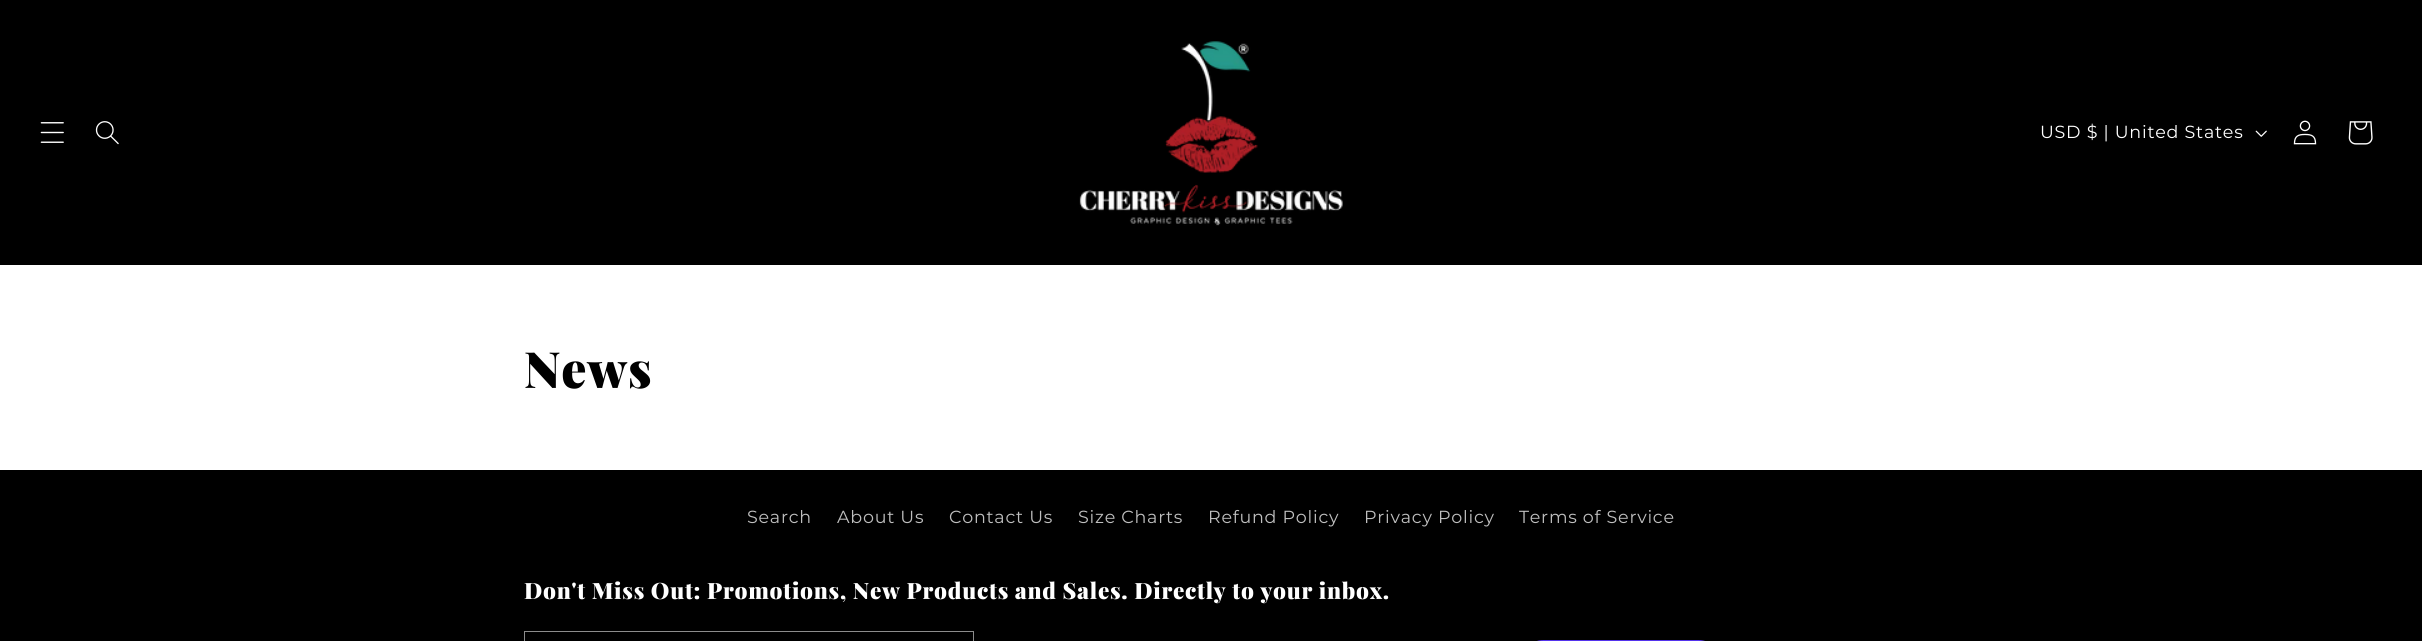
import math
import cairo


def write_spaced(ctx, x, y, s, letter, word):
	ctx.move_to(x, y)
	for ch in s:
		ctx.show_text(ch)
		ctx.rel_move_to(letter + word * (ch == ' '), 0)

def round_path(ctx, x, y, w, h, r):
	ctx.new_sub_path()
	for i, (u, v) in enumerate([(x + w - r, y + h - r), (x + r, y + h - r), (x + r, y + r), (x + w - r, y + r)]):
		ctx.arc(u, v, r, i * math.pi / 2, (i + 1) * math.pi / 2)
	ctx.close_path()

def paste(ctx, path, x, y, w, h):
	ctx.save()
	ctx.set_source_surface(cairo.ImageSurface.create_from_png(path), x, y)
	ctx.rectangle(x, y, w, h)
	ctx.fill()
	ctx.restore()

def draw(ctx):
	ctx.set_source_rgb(1, 1, 1)
	ctx.paint()
	ctx.set_source_rgb(0, 0, 0)
	ctx.rectangle(0, 0, 2422, 265)
	ctx.fill()
	paste(ctx, 'media/1.png', 40, 122, 24, 21)
	paste(ctx, 'media/2.png', 95, 121, 24, 24)
	paste(ctx, 'media/3.png', 1079, 41, 264, 185)
	ctx.select_font_face('Montserrat')
	ctx.set_font_size(17.5)
	ctx.set_source_rgb(1, 1, 1)
	write_spaced(ctx, 2040, 138, 'USD $ | United States', 0.75, 0)
	paste(ctx, 'media/4.png', 2255, 130, 12, 7)
	paste(ctx, 'media/5.png', 2293, 120, 24, 25)
	paste(ctx, 'media/6.png', 2348, 121, 25, 24)
	ctx.select_font_face('Playfair Display Black')
	ctx.set_font_size(50)
	ctx.set_source_rgb(0, 0, 0)
	write_spaced(ctx, 524, 388, 'News', 0.75, 0)
	ctx.rectangle(0, 470, 2422, 171)
	ctx.fill()
	ctx.select_font_face('Montserrat')
	ctx.set_font_size(17.5)
	ctx.set_source_rgb(0.749, 0.749, 0.749)
	for x, y, s in [
		(747, 523, 'Search'),
		(837, 523, 'About Us'),
		(949, 523, 'Contact Us'),
		(1078, 523, 'Size Charts'),
		(1208, 523, 'Refund Policy'),
		(1364, 523, 'Privacy Policy'),
		(1519, 523, 'Terms of Service'),
	]:
		write_spaced(ctx, x, y, s, 0.75, 0)
	ctx.select_font_face('Playfair Display Black')
	ctx.set_font_size(22.5)
	ctx.set_source_rgb(1, 1, 1)
	write_spaced(ctx, 524, 599, 'Don\'t Miss Out: Promotions, New Products and Sales. Directly to your inbox.', 0.75, 0)
	ctx.rectangle(524.5, 631.5, 449, 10)
	ctx.set_source_rgb(0.549, 0.549, 0.549)
	ctx.set_line_width(1)
	ctx.stroke()
	ctx.set_source_rgb(0.329, 0.2, 0.922)
	round_path(ctx, 1521, 640, 200, 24, 22.5)
	ctx.fill()


surface = cairo.ImageSurface(cairo.FORMAT_RGB24, 2422, 641)
ctx = cairo.Context(surface)
options = cairo.FontOptions()
options.set_hint_metrics(cairo.HINT_METRICS_OFF)
options.set_hint_style(cairo.HINT_STYLE_NONE)
ctx.set_font_options(options)
ctx.set_miter_limit(4)
draw(ctx)
surface.write_to_png('image.png')
